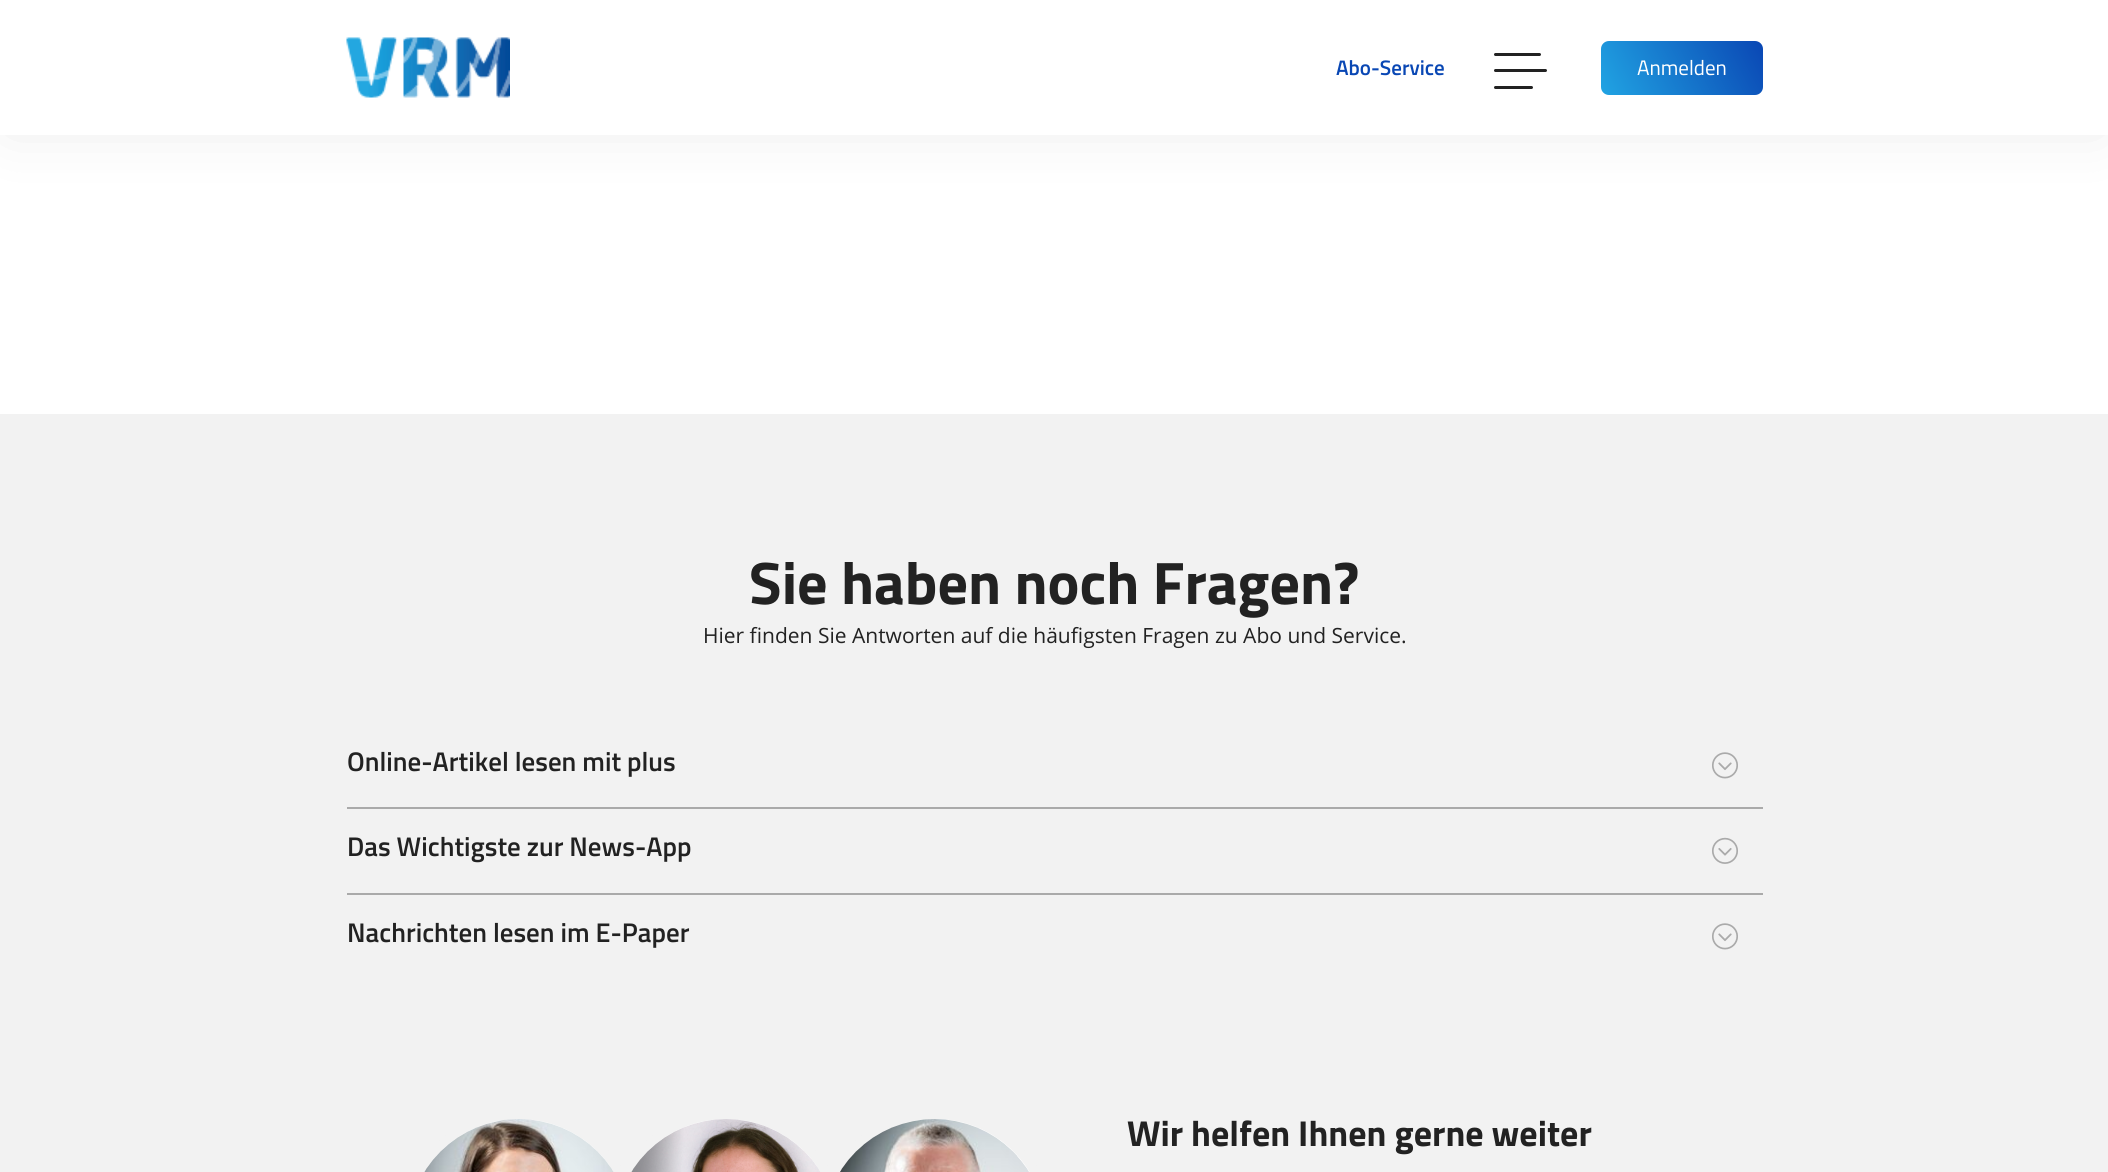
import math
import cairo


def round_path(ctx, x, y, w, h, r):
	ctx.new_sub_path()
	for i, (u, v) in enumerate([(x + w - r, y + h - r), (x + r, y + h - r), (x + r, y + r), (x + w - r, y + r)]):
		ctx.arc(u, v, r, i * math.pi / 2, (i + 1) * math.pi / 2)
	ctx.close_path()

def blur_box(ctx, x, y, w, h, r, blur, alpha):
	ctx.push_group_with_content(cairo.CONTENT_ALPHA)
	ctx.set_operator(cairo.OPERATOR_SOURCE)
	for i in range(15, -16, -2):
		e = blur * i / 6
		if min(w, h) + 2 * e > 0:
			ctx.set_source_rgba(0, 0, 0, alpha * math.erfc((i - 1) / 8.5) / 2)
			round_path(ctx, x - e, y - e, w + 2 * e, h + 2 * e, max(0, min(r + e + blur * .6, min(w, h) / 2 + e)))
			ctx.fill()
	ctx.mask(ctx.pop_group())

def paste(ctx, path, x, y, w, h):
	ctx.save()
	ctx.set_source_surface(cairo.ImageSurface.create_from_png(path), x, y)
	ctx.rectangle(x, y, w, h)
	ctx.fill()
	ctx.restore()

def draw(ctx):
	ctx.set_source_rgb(1, 1, 1)
	ctx.paint()
	ctx.set_source_rgb(0.133, 0.133, 0.133)
	blur_box(ctx, 8, 8, 2094, 120, 0, 30, 0.1)
	ctx.set_source_rgb(1, 1, 1)
	ctx.rectangle(0, 0, 2108, 135)
	ctx.fill()
	paste(ctx, 'media/1.png', 346, 37, 164, 61)
	ctx.select_font_face('Titillium Web SemiBold')
	ctx.set_font_size(21)
	ctx.set_source_rgb(0.039, 0.278, 0.706)
	ctx.move_to(1336, 75)
	ctx.show_text('Abo-Service')
	ctx.set_source_rgb(0.133, 0.133, 0.133)
	round_path(ctx, 1494, 53, 47, 3, 1.5)
	ctx.fill()
	round_path(ctx, 1494, 69, 53, 3, 1.5)
	ctx.fill()
	round_path(ctx, 1494, 86, 39, 3, 1.5)
	ctx.fill()
	gradient = cairo.LinearGradient(1607, 107, 1756, 28)
	gradient.add_color_stop_rgba(0, 0.129, 0.643, 0.89, 1)
	gradient.add_color_stop_rgba(1, 0.039, 0.278, 0.706, 1)
	ctx.set_source(gradient)
	round_path(ctx, 1601, 41, 162, 54, 8)
	ctx.fill()
	ctx.select_font_face('Titillium Web')
	ctx.set_source_rgb(1, 1, 1)
	ctx.move_to(1637, 75)
	ctx.show_text('Anmelden')
	ctx.set_source_rgb(0.949, 0.949, 0.949)
	ctx.rectangle(0, 414, 2108, 758)
	ctx.fill()
	ctx.select_font_face('Titillium Web', cairo.FONT_SLANT_NORMAL, cairo.FONT_WEIGHT_BOLD)
	ctx.set_font_size(60)
	ctx.set_source_rgb(0.133, 0.133, 0.133)
	ctx.move_to(749, 604)
	ctx.show_text('Sie haben noch Fragen?')
	ctx.select_font_face('Open Sans')
	ctx.set_font_size(21)
	ctx.move_to(703, 643)
	ctx.show_text('Hier finden Sie Antworten auf die häufigsten Fragen zu Abo und Service.')
	ctx.set_source_rgb(0.667, 0.667, 0.667)
	ctx.rectangle(347, 807, 1416, 2)
	ctx.fill()
	ctx.select_font_face('Titillium Web SemiBold')
	ctx.set_font_size(27)
	ctx.set_source_rgb(0.133, 0.133, 0.133)
	ctx.move_to(347, 771)
	ctx.show_text('Online-Artikel lesen mit plus')
	paste(ctx, 'media/2.png', 1712, 752, 26, 27)
	ctx.set_source_rgb(0.667, 0.667, 0.667)
	ctx.rectangle(347, 893, 1416, 2)
	ctx.fill()
	ctx.set_source_rgb(0.133, 0.133, 0.133)
	ctx.move_to(347, 856)
	ctx.show_text('Das Wichtigste zur News-App')
	paste(ctx, 'media/3.png', 1712, 837, 26, 27)
	ctx.move_to(347, 942)
	ctx.show_text('Nachrichten lesen im E-Paper')
	paste(ctx, 'media/2.png', 1712, 923, 26, 27)
	ctx.set_source_rgb(1, 1, 1)
	round_path(ctx, 819.5, 1114.5, 231, 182, 115.5)
	ctx.fill_preserve()
	ctx.set_source_rgb(0.949, 0.949, 0.949)
	ctx.set_line_width(9)
	ctx.stroke()
	paste(ctx, 'media/6.png', 840, 1119, 189, 53)
	ctx.set_source_rgb(1, 1, 1)
	round_path(ctx, 610.5, 1114.5, 231, 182, 115.5)
	ctx.fill_preserve()
	ctx.set_source_rgb(0.949, 0.949, 0.949)
	ctx.stroke()
	paste(ctx, 'media/5.png', 631, 1119, 190, 53)
	ctx.set_source_rgb(1, 1, 1)
	round_path(ctx, 403.5, 1114.5, 231, 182, 115.5)
	ctx.fill_preserve()
	ctx.set_source_rgb(0.949, 0.949, 0.949)
	ctx.stroke()
	paste(ctx, 'media/4.png', 424, 1119, 190, 53)
	ctx.select_font_face('Titillium Web', cairo.FONT_SLANT_NORMAL, cairo.FONT_WEIGHT_BOLD)
	ctx.set_font_size(36)
	ctx.set_source_rgb(0.133, 0.133, 0.133)
	ctx.move_to(1127, 1146)
	ctx.show_text('Wir helfen Ihnen gerne weiter')


surface = cairo.ImageSurface(cairo.FORMAT_RGB24, 2108, 1172)
ctx = cairo.Context(surface)
options = cairo.FontOptions()
options.set_hint_metrics(cairo.HINT_METRICS_OFF)
options.set_hint_style(cairo.HINT_STYLE_NONE)
ctx.set_font_options(options)
ctx.set_miter_limit(4)
draw(ctx)
surface.write_to_png('image.png')
